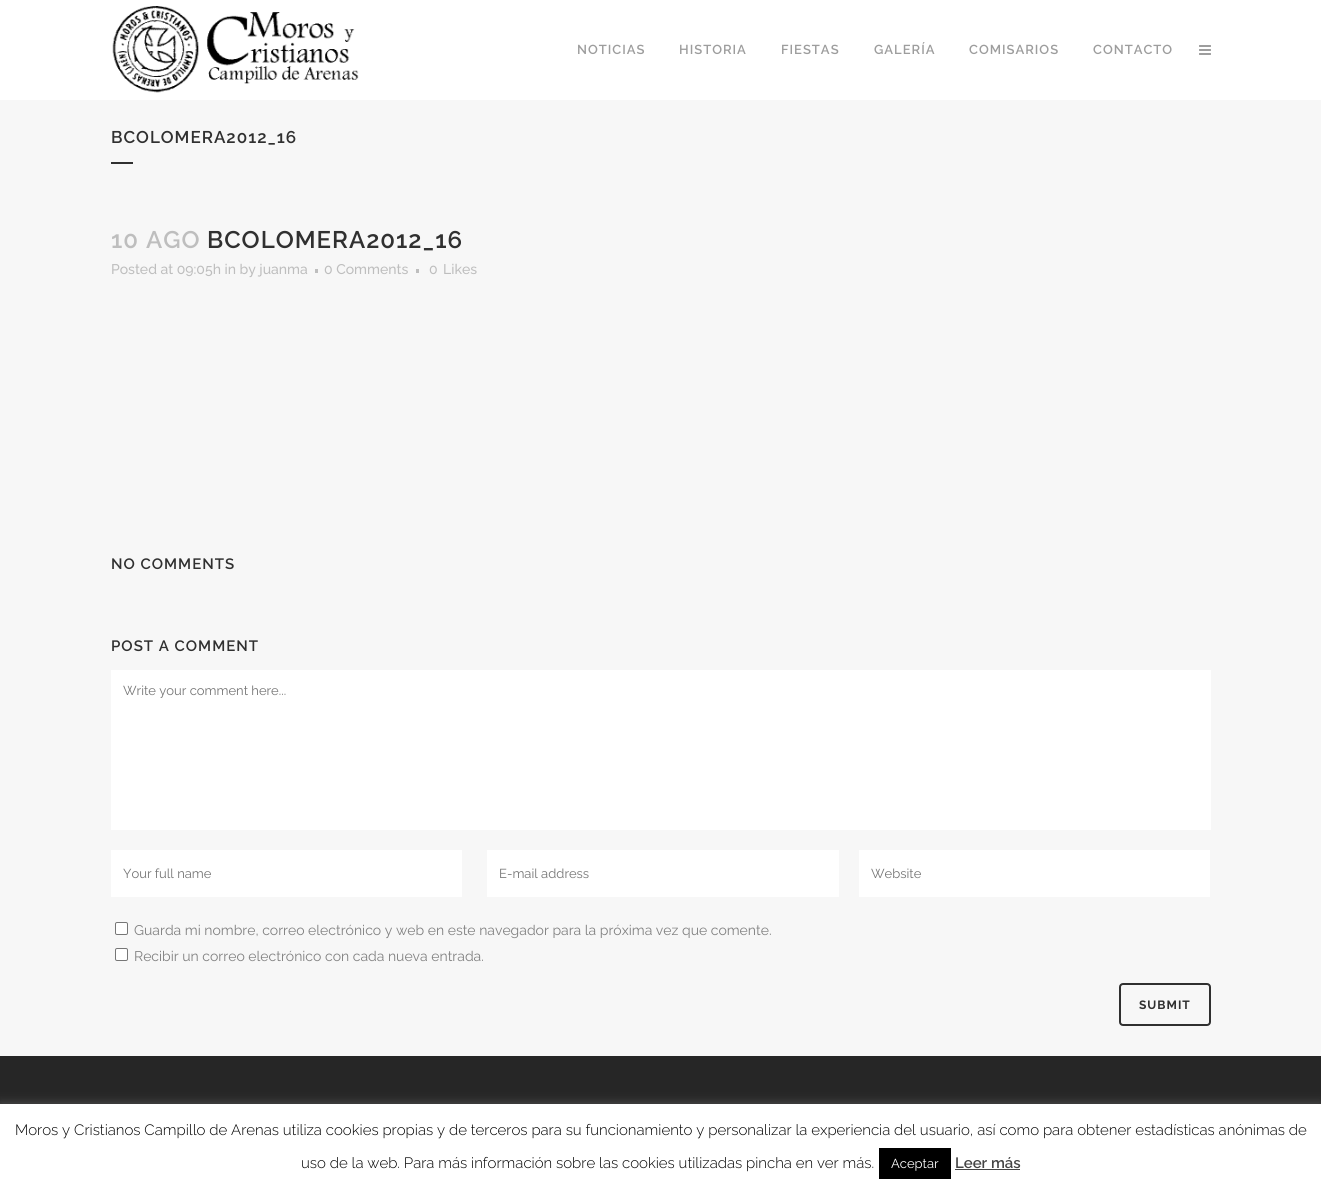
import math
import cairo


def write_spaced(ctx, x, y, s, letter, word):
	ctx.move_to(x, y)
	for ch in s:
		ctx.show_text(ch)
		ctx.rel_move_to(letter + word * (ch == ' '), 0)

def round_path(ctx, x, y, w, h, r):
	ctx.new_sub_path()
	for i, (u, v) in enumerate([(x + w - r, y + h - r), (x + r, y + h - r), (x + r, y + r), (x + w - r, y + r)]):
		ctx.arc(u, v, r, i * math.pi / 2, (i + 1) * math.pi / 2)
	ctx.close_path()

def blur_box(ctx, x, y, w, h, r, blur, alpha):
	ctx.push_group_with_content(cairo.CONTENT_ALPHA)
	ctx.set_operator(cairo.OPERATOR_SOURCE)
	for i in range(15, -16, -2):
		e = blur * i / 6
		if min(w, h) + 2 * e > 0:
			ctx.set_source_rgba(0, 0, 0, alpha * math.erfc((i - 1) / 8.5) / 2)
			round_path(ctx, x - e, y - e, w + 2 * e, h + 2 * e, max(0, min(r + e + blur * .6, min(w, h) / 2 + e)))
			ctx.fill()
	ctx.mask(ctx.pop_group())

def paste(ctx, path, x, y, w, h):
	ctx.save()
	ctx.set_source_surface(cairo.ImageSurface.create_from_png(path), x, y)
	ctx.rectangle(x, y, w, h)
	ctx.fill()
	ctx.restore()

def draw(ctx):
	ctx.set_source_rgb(0.965, 0.965, 0.965)
	ctx.paint()
	ctx.set_source_rgb(1, 1, 1)
	ctx.rectangle(0, 0, 1321, 100)
	ctx.fill()
	paste(ctx, 'media/1.png', 112, 6, 247, 87)
	ctx.select_font_face('Raleway SemiBold')
	ctx.set_font_size(13)
	ctx.set_source_rgb(0.616, 0.616, 0.616)
	for x, y, s in [
		(577, 54, 'NOTICIAS'),
		(679, 54, 'HISTORIA'),
		(781, 54, 'FIESTAS'),
		(874, 54, 'GALERÍA'),
		(969, 54, 'COMISARIOS'),
		(1093, 54, 'CONTACTO'),
	]:
		write_spaced(ctx, x, y, s, 1, 0)
	paste(ctx, 'media/2.png', 1199, 45, 12, 10)
	ctx.set_font_size(17)
	ctx.set_source_rgb(0.188, 0.188, 0.188)
	write_spaced(ctx, 111, 143, 'BCOLOMERA2012_16', 1, 0)
	ctx.rectangle(111, 162, 22, 2)
	ctx.fill()
	ctx.set_font_size(24)
	ctx.set_source_rgb(0.745, 0.745, 0.745)
	write_spaced(ctx, 111, 248, '10 AGO', 1, 0)
	ctx.set_source_rgb(0.188, 0.188, 0.188)
	write_spaced(ctx, 207, 248, 'BCOLOMERA2012_16', 1, 0)
	ctx.select_font_face('Raleway Medium')
	ctx.set_font_size(14)
	ctx.set_source_rgb(0.745, 0.745, 0.745)
	ctx.move_to(111, 274)
	ctx.show_text('Posted at 09:05h in by juanma')
	ctx.rectangle(315, 269, 3, 4)
	ctx.fill()
	ctx.move_to(324, 274)
	ctx.show_text('0 Comments')
	ctx.rectangle(416, 269, 3, 4)
	ctx.fill()
	ctx.move_to(429, 274)
	ctx.show_text('0')
	ctx.move_to(443, 274)
	ctx.show_text('Likes')
	ctx.select_font_face('Raleway SemiBold')
	ctx.set_font_size(15)
	ctx.set_source_rgb(0.188, 0.188, 0.188)
	write_spaced(ctx, 111, 569, 'NO COMMENTS', 1, 0)
	write_spaced(ctx, 111, 651, 'POST A COMMENT', 1, 0)
	ctx.set_source_rgb(1, 1, 1)
	ctx.rectangle(111, 670, 1100, 160)
	ctx.fill()
	ctx.select_font_face('Raleway')
	ctx.set_font_size(13)
	ctx.set_source_rgb(0.459, 0.459, 0.459)
	ctx.move_to(123, 695)
	ctx.show_text('Write your comment here...')
	ctx.set_source_rgb(1, 1, 1)
	ctx.rectangle(111, 850, 351, 47)
	ctx.fill()
	ctx.set_source_rgb(0.459, 0.459, 0.459)
	ctx.move_to(123, 878)
	ctx.show_text('Your full name')
	ctx.set_source_rgb(1, 1, 1)
	ctx.rectangle(487, 850, 352, 47)
	ctx.fill()
	ctx.set_source_rgb(0.459, 0.459, 0.459)
	ctx.move_to(499, 878)
	ctx.show_text('E-mail address')
	ctx.set_source_rgb(1, 1, 1)
	ctx.rectangle(859, 850, 351, 47)
	ctx.fill()
	ctx.set_source_rgb(0.459, 0.459, 0.459)
	ctx.move_to(871, 878)
	ctx.show_text('Website')
	ctx.set_source_rgb(1, 1, 1)
	round_path(ctx, 115.5, 922.5, 12, 12, 1.5)
	ctx.fill_preserve()
	ctx.set_source_rgb(0.463, 0.463, 0.463)
	ctx.set_line_width(1)
	ctx.stroke()
	ctx.set_font_size(14)
	ctx.set_source_rgb(0.506, 0.506, 0.506)
	ctx.move_to(134, 935)
	ctx.show_text('Guarda mi nombre, correo electrónico y web en este navegador para la próxima vez que comente.')
	ctx.set_source_rgb(1, 1, 1)
	round_path(ctx, 115.5, 948.5, 12, 12, 1.5)
	ctx.fill_preserve()
	ctx.set_source_rgb(0.463, 0.463, 0.463)
	ctx.stroke()
	ctx.set_source_rgb(0.506, 0.506, 0.506)
	ctx.move_to(134, 961)
	ctx.show_text('Recibir un correo electrónico con cada nueva entrada.')
	round_path(ctx, 1120, 984, 90, 41, 3)
	ctx.set_source_rgb(0.188, 0.188, 0.188)
	ctx.set_line_width(2)
	ctx.stroke()
	ctx.select_font_face('Raleway', cairo.FONT_SLANT_NORMAL, cairo.FONT_WEIGHT_BOLD)
	ctx.set_font_size(12)
	write_spaced(ctx, 1139, 1009, 'SUBMIT', 1, 0)
	ctx.set_source_rgb(0.149, 0.149, 0.149)
	ctx.rectangle(0, 1056, 1321, 48)
	ctx.fill()
	ctx.set_source_rgb(0.675, 0.671, 0.671)
	blur_box(ctx, 0, 1103, 1321, 87, 0, 5, 0.3)
	ctx.set_source_rgb(1, 1, 1)
	ctx.rectangle(0, 1104, 1321, 87)
	ctx.fill()
	ctx.select_font_face('Raleway Light')
	ctx.set_font_size(15)
	ctx.set_source_rgb(0, 0, 0)
	ctx.move_to(15, 1135)
	ctx.show_text('Moros y Cristianos Campillo de Arenas utiliza cookies propias y de terceros para su funcionamiento y personalizar la experiencia del usuario, así como para obtener estadísticas anónimas de')
	ctx.move_to(301, 1168)
	ctx.show_text('uso de la web. Para más información sobre las cookies utilizadas pincha en ver más.')
	ctx.rectangle(879, 1148, 72, 31)
	ctx.fill()
	ctx.select_font_face('Raleway')
	ctx.set_font_size(13)
	ctx.set_source_rgb(1, 1, 1)
	ctx.move_to(891, 1168)
	ctx.show_text('Aceptar')
	ctx.select_font_face('Raleway SemiBold')
	ctx.set_font_size(15)
	ctx.set_source_rgb(0.267, 0.267, 0.267)
	ctx.move_to(955, 1168)
	ctx.show_text('Leer más')
	ctx.rectangle(955, 1169, 65, 1)
	ctx.fill()


surface = cairo.ImageSurface(cairo.FORMAT_RGB24, 1321, 1191)
ctx = cairo.Context(surface)
options = cairo.FontOptions()
options.set_hint_metrics(cairo.HINT_METRICS_OFF)
options.set_hint_style(cairo.HINT_STYLE_NONE)
ctx.set_font_options(options)
ctx.set_miter_limit(4)
draw(ctx)
surface.write_to_png('image.png')
